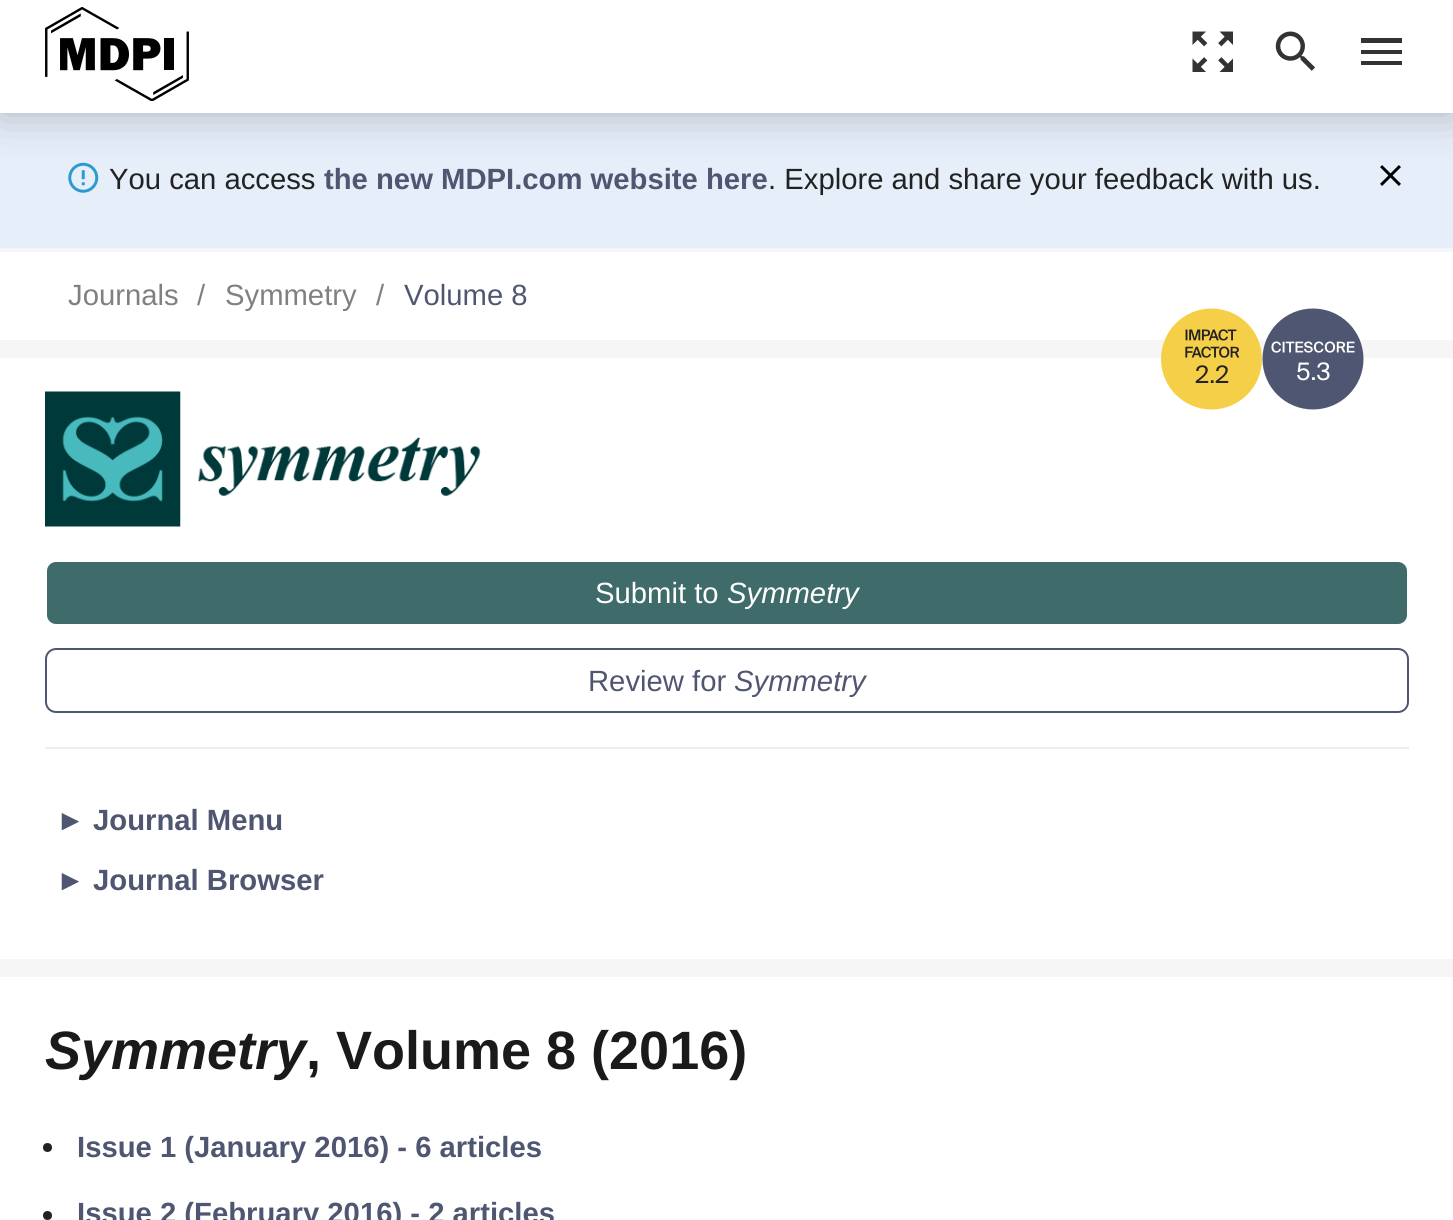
import math
import cairo


def round_path(ctx, x, y, w, h, r):
	ctx.new_sub_path()
	for i, (u, v) in enumerate([(x + w - r, y + h - r), (x + r, y + h - r), (x + r, y + r), (x + w - r, y + r)]):
		ctx.arc(u, v, r, i * math.pi / 2, (i + 1) * math.pi / 2)
	ctx.close_path()

def blur_box(ctx, x, y, w, h, r, blur, alpha):
	ctx.push_group_with_content(cairo.CONTENT_ALPHA)
	ctx.set_operator(cairo.OPERATOR_SOURCE)
	for i in range(15, -16, -2):
		e = blur * i / 6
		if min(w, h) + 2 * e > 0:
			ctx.set_source_rgba(0, 0, 0, alpha * math.erfc((i - 1) / 8.5) / 2)
			round_path(ctx, x - e, y - e, w + 2 * e, h + 2 * e, max(0, min(r + e + blur * .6, min(w, h) / 2 + e)))
			ctx.fill()
	ctx.mask(ctx.pop_group())

def paste(ctx, path, x, y, w, h):
	ctx.save()
	ctx.set_source_surface(cairo.ImageSurface.create_from_png(path), x, y)
	ctx.rectangle(x, y, w, h)
	ctx.fill()
	ctx.restore()

def draw(ctx):
	ctx.set_source_rgb(0.961, 0.961, 0.961)
	ctx.paint()
	ctx.set_source_rgb(0.902, 0.933, 0.98)
	ctx.rectangle(0, 113, 1453, 135)
	ctx.fill()
	paste(ctx, 'media/4.png', 68, 162, 31, 31)
	paste(ctx, 'media/5.png', 1380, 165, 21, 21)
	ctx.set_source_rgb(0, 0, 0)
	blur_box(ctx, 0, 0, 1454, 113, 0, 22.5, 0.25)
	ctx.set_source_rgb(1, 1, 1)
	ctx.rectangle(0, 0, 1453, 113)
	ctx.fill()
	paste(ctx, 'media/1.png', 45, 7, 144, 94)
	paste(ctx, 'media/2.png', 1192, 31, 41, 41)
	paste(ctx, 'media/3.png', 1275, 31, 40, 40)
	ctx.set_source_rgb(0.2, 0.2, 0.2)
	ctx.new_path()
	ctx.move_to(1361, 65)
	ctx.line_to(1402, 65)
	ctx.line_to(1402, 61)
	ctx.line_to(1361, 61)
	ctx.close_path()
	ctx.move_to(1361, 54)
	ctx.line_to(1402, 54)
	ctx.line_to(1402, 50)
	ctx.line_to(1361, 50)
	ctx.close_path()
	ctx.move_to(1361, 38)
	ctx.line_to(1361, 43)
	ctx.line_to(1402, 43)
	ctx.line_to(1402, 38)
	ctx.close_path()
	ctx.fill()
	ctx.select_font_face('Liberation Sans')
	ctx.set_font_size(29.25)
	ctx.set_source_rgb(0.133, 0.133, 0.133)
	ctx.move_to(109, 189)
	ctx.show_text('You can access')
	ctx.select_font_face('Liberation Sans', cairo.FONT_SLANT_NORMAL, cairo.FONT_WEIGHT_BOLD)
	ctx.set_source_rgb(0.31, 0.337, 0.443)
	ctx.move_to(324, 189)
	ctx.show_text('the new MDPI.com website here')
	ctx.select_font_face('Liberation Sans')
	ctx.set_source_rgb(0.133, 0.133, 0.133)
	ctx.move_to(768, 189)
	ctx.show_text('. Explore and share your feedback with us.')
	ctx.set_source_rgb(1, 1, 1)
	ctx.rectangle(0, 252, 1453, 88)
	ctx.fill()
	ctx.set_source_rgb(0.502, 0.502, 0.502)
	for x, y, s in [
		(68, 305, 'Journals'),
		(197, 305, '/'),
		(225, 305, 'Symmetry'),
		(376, 305, '/'),
	]:
		ctx.move_to(x, y)
		ctx.show_text(s)
	ctx.set_source_rgb(0.31, 0.337, 0.443)
	ctx.move_to(404, 305)
	ctx.show_text('Volume 8')
	ctx.set_source_rgb(1, 1, 1)
	ctx.rectangle(0, 358, 1453, 601)
	ctx.fill()
	paste(ctx, 'media/6.png', 1161, 308, 101, 102)
	ctx.select_font_face('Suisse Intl')
	ctx.set_font_size(24)
	ctx.set_source_rgb(0.133, 0.133, 0.133)
	ctx.move_to(1195, 383)
	ctx.show_text('2.2')
	paste(ctx, 'media/7.png', 1262, 308, 102, 102)
	ctx.set_source_rgb(1, 1, 1)
	ctx.move_to(1296, 380)
	ctx.show_text('5.3')
	paste(ctx, 'media/8.png', 45, 391, 436, 136)
	ctx.set_source_rgb(0.251, 0.42, 0.42)
	round_path(ctx, 46, 561, 1362, 64, 10)
	ctx.fill_preserve()
	ctx.set_source_rgb(1, 1, 1)
	ctx.stroke()
	ctx.select_font_face('Liberation Sans')
	ctx.set_font_size(29.25)
	ctx.move_to(595, 603)
	ctx.show_text('Submit to')
	ctx.select_font_face('Liberation Sans', cairo.FONT_SLANT_ITALIC)
	ctx.move_to(727, 603)
	ctx.show_text('Symmetry')
	round_path(ctx, 46, 649, 1362, 63, 10)
	ctx.set_source_rgb(0.31, 0.337, 0.443)
	ctx.stroke()
	ctx.select_font_face('Liberation Sans')
	ctx.move_to(588, 691)
	ctx.show_text('Review for')
	ctx.select_font_face('Liberation Sans', cairo.FONT_SLANT_ITALIC)
	ctx.move_to(734, 691)
	ctx.show_text('Symmetry')
	ctx.set_source_rgb(0.929, 0.929, 0.929)
	ctx.rectangle(45, 747, 1364, 2)
	ctx.fill()
	ctx.select_font_face('Liberation Sans', cairo.FONT_SLANT_NORMAL, cairo.FONT_WEIGHT_BOLD)
	ctx.set_source_rgb(0.31, 0.337, 0.443)
	ctx.move_to(56, 830)
	ctx.show_text('► Journal Menu')
	ctx.move_to(56, 890)
	ctx.show_text('► Journal Browser')
	ctx.set_source_rgb(1, 1, 1)
	ctx.rectangle(0, 977, 1453, 243)
	ctx.fill()
	ctx.select_font_face('Liberation Sans', cairo.FONT_SLANT_ITALIC, cairo.FONT_WEIGHT_BOLD)
	ctx.set_font_size(54)
	ctx.set_source_rgb(0.102, 0.102, 0.102)
	ctx.move_to(45, 1069)
	ctx.show_text('Symmetry')
	ctx.select_font_face('Liberation Sans', cairo.FONT_SLANT_NORMAL, cairo.FONT_WEIGHT_BOLD)
	ctx.move_to(306, 1069)
	ctx.show_text(', Volume 8 (2016)')
	ctx.set_source_rgb(0.133, 0.133, 0.133)
	ctx.new_path()
	ctx.arc(47.5, 1147.5, 4.5, 0, 2 * math.pi)
	ctx.fill()
	ctx.set_font_size(29.25)
	ctx.set_source_rgb(0.31, 0.337, 0.443)
	ctx.move_to(77, 1157)
	ctx.show_text('Issue 1 (January 2016) - 6 articles')
	ctx.set_source_rgb(0.133, 0.133, 0.133)
	ctx.new_path()
	ctx.arc(47.5, 1215.5, 4.5, 0, 2 * math.pi)
	ctx.fill()
	ctx.set_source_rgb(0.31, 0.337, 0.443)
	ctx.move_to(77, 1223)
	ctx.show_text('Issue 2 (February 2016) - 2 articles')


surface = cairo.ImageSurface(cairo.FORMAT_RGB24, 1453, 1220)
ctx = cairo.Context(surface)
options = cairo.FontOptions()
options.set_hint_metrics(cairo.HINT_METRICS_OFF)
options.set_hint_style(cairo.HINT_STYLE_NONE)
ctx.set_font_options(options)
ctx.set_miter_limit(4)
draw(ctx)
surface.write_to_png('image.png')
